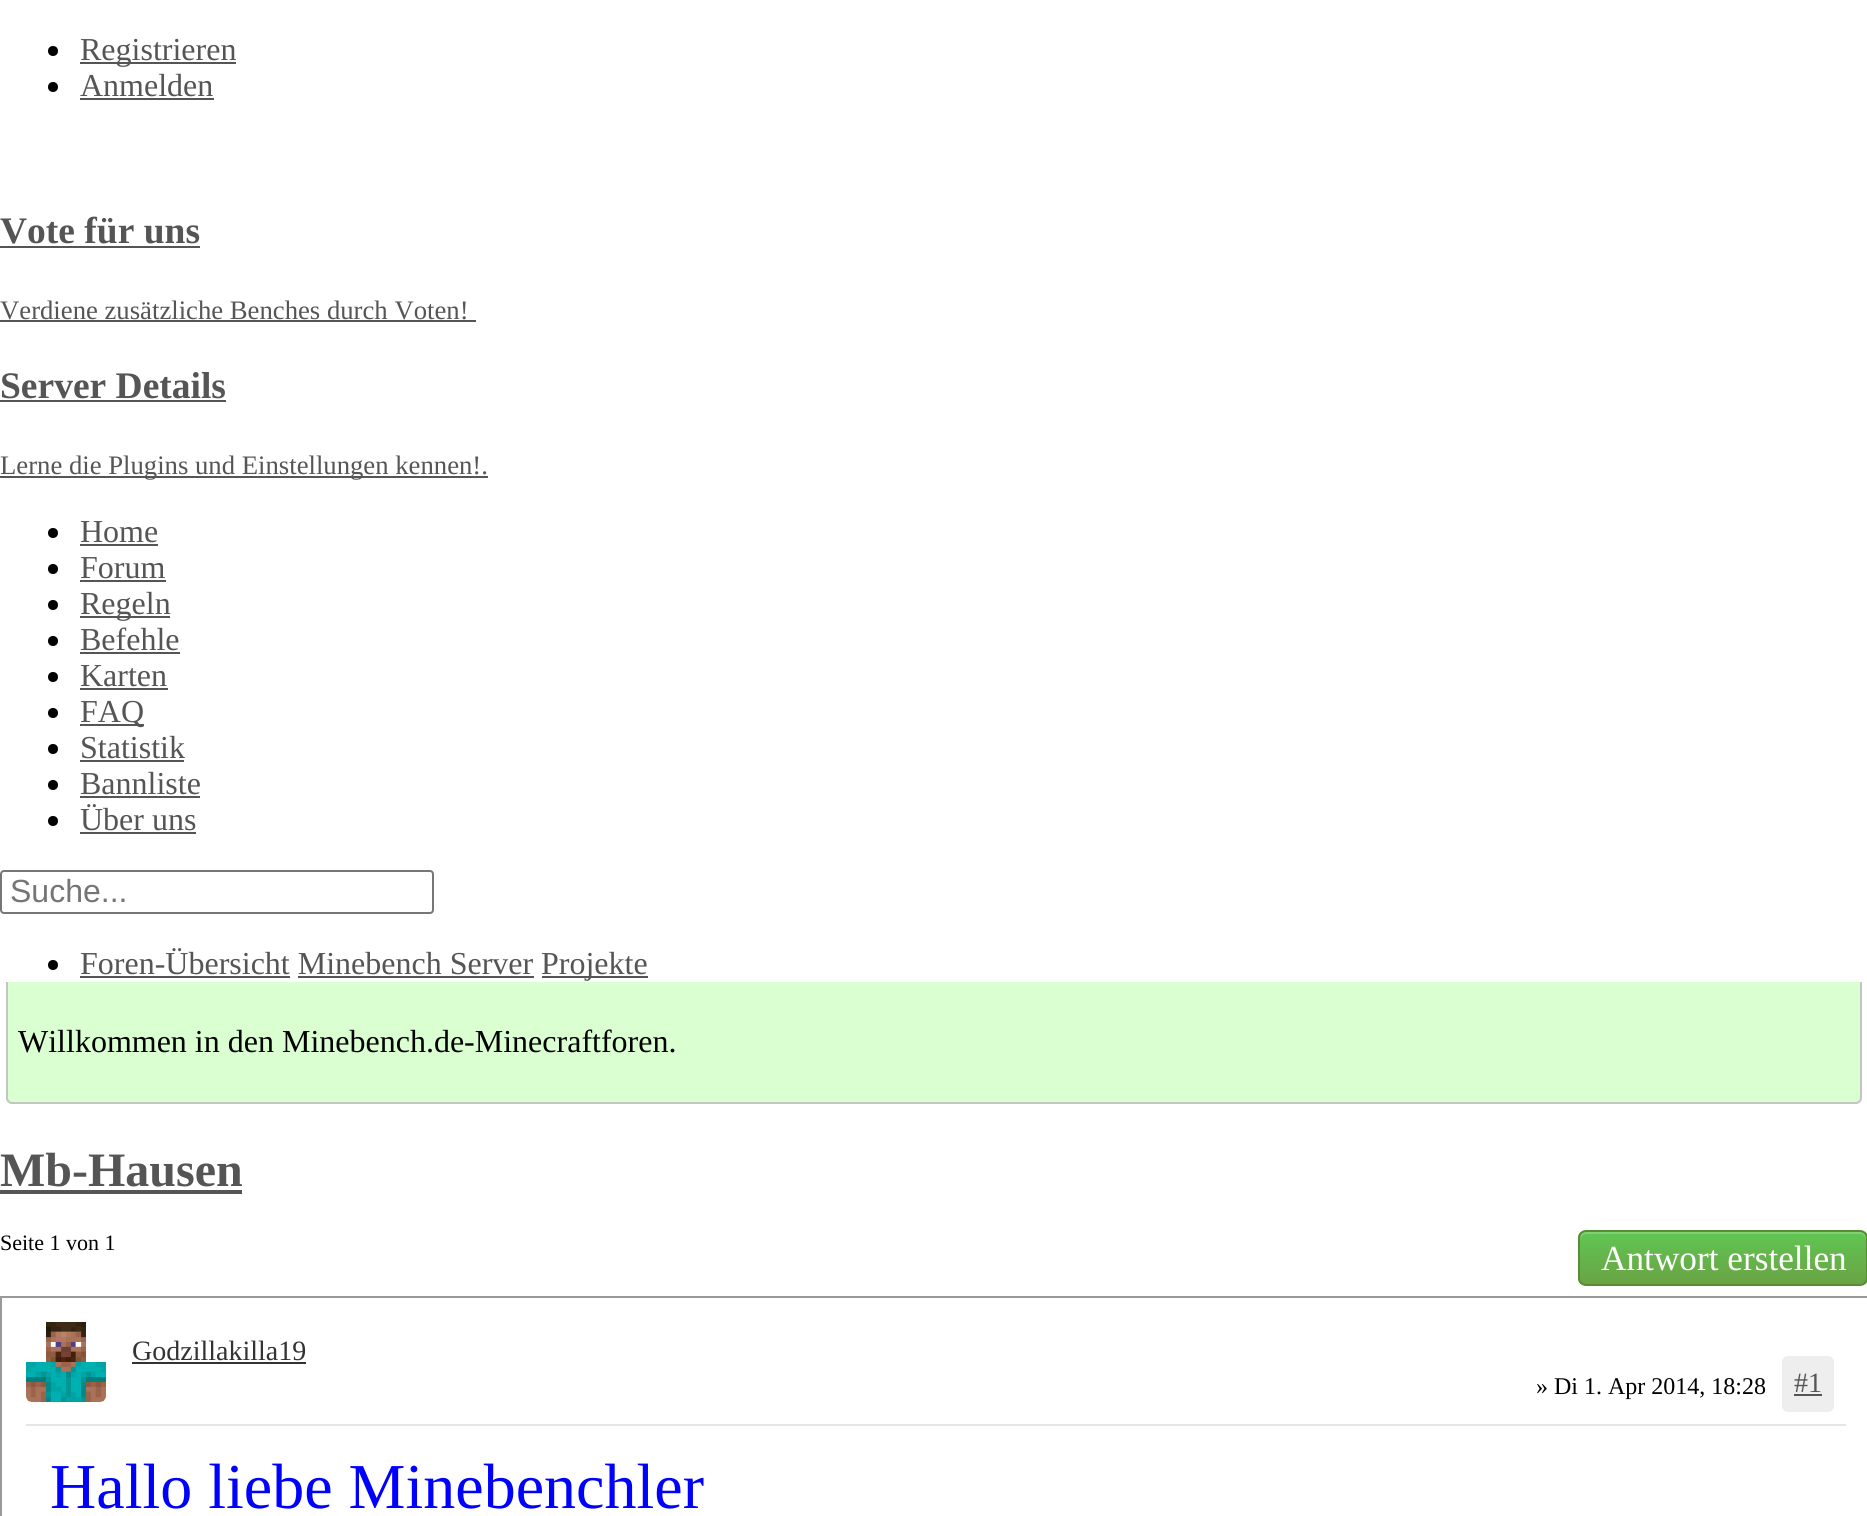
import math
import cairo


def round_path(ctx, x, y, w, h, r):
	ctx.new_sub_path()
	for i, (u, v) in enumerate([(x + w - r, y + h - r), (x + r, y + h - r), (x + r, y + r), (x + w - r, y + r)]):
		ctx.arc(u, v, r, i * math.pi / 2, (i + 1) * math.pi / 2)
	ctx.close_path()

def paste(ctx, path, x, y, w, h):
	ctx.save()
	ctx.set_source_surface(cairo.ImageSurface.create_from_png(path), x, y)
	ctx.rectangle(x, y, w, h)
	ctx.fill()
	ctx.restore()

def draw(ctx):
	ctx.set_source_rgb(1, 1, 1)
	ctx.paint()
	ctx.set_source_rgb(0, 0, 0)
	ctx.arc(53, 51, 5, 0, 2 * math.pi)
	ctx.fill()
	ctx.set_source_rgb(0.333, 0.333, 0.333)
	ctx.rectangle(80, 62, 156, 2)
	ctx.fill()
	ctx.select_font_face('Liberation Serif')
	ctx.set_font_size(32)
	ctx.move_to(80, 60)
	ctx.show_text('Registrieren')
	ctx.set_source_rgb(0, 0, 0)
	ctx.new_path()
	ctx.arc(53, 87, 5, 0, 2 * math.pi)
	ctx.fill()
	ctx.set_source_rgb(0.333, 0.333, 0.333)
	ctx.move_to(80, 96)
	ctx.show_text('Anmelden')
	ctx.rectangle(80, 98, 134, 2)
	ctx.fill()
	ctx.select_font_face('Liberation Serif', cairo.FONT_SLANT_NORMAL, cairo.FONT_WEIGHT_BOLD)
	ctx.set_font_size(37.5)
	ctx.move_to(0, 243)
	ctx.show_text('Vote für uns')
	ctx.rectangle(0, 246, 200, 2)
	ctx.fill()
	ctx.select_font_face('Liberation Serif')
	ctx.set_font_size(26.7)
	ctx.move_to(0, 319)
	ctx.show_text('Verdiene zusätzliche Benches durch Voten!')
	ctx.rectangle(0, 320, 476, 2)
	ctx.fill()
	ctx.select_font_face('Liberation Serif', cairo.FONT_SLANT_NORMAL, cairo.FONT_WEIGHT_BOLD)
	ctx.set_font_size(37.5)
	ctx.move_to(0, 398)
	ctx.show_text('Server Details')
	ctx.rectangle(0, 400, 226, 2)
	ctx.fill()
	ctx.rectangle(0, 476, 488, 2)
	ctx.fill()
	ctx.select_font_face('Liberation Serif')
	ctx.set_font_size(26.7)
	ctx.move_to(0, 474)
	ctx.show_text('Lerne die Plugins und Einstellungen kennen!.')
	ctx.set_source_rgb(0, 0, 0)
	ctx.new_path()
	ctx.arc(53, 533, 5, 0, 2 * math.pi)
	ctx.fill()
	ctx.set_font_size(32)
	ctx.set_source_rgb(0.333, 0.333, 0.333)
	ctx.move_to(80, 542)
	ctx.show_text('Home')
	ctx.rectangle(80, 544, 78, 2)
	ctx.fill()
	ctx.set_source_rgb(0, 0, 0)
	ctx.arc(53, 569, 5, 0, 2 * math.pi)
	ctx.fill()
	ctx.set_source_rgb(0.333, 0.333, 0.333)
	ctx.move_to(80, 578)
	ctx.show_text('Forum')
	ctx.rectangle(80, 580, 86, 2)
	ctx.fill()
	ctx.set_source_rgb(0, 0, 0)
	ctx.arc(53, 605, 5, 0, 2 * math.pi)
	ctx.fill()
	ctx.set_source_rgb(0.333, 0.333, 0.333)
	ctx.rectangle(80, 616, 90, 2)
	ctx.fill()
	ctx.move_to(80, 614)
	ctx.show_text('Regeln')
	ctx.set_source_rgb(0, 0, 0)
	ctx.new_path()
	ctx.arc(53, 641, 5, 0, 2 * math.pi)
	ctx.fill()
	ctx.set_source_rgb(0.333, 0.333, 0.333)
	ctx.move_to(80, 650)
	ctx.show_text('Befehle')
	ctx.rectangle(80, 652, 100, 2)
	ctx.fill()
	ctx.set_source_rgb(0, 0, 0)
	ctx.arc(53, 677, 5, 0, 2 * math.pi)
	ctx.fill()
	ctx.set_source_rgb(0.333, 0.333, 0.333)
	ctx.move_to(80, 686)
	ctx.show_text('Karten')
	ctx.rectangle(80, 688, 88, 2)
	ctx.fill()
	ctx.set_source_rgb(0, 0, 0)
	ctx.arc(53, 713, 5, 0, 2 * math.pi)
	ctx.fill()
	ctx.set_source_rgb(0.333, 0.333, 0.333)
	ctx.rectangle(80, 724, 64, 2)
	ctx.fill()
	ctx.move_to(80, 722)
	ctx.show_text('FAQ')
	ctx.set_source_rgb(0, 0, 0)
	ctx.new_path()
	ctx.arc(53, 749, 5, 0, 2 * math.pi)
	ctx.fill()
	ctx.set_source_rgb(0.333, 0.333, 0.333)
	ctx.move_to(80, 758)
	ctx.show_text('Statistik')
	ctx.rectangle(80, 760, 104, 2)
	ctx.fill()
	ctx.set_source_rgb(0, 0, 0)
	ctx.arc(53, 785, 5, 0, 2 * math.pi)
	ctx.fill()
	ctx.set_source_rgb(0.333, 0.333, 0.333)
	ctx.move_to(80, 794)
	ctx.show_text('Bannliste')
	ctx.rectangle(80, 796, 120, 2)
	ctx.fill()
	ctx.set_source_rgb(0, 0, 0)
	ctx.arc(53, 821, 5, 0, 2 * math.pi)
	ctx.fill()
	ctx.set_source_rgb(0.333, 0.333, 0.333)
	ctx.move_to(80, 830)
	ctx.show_text('Über uns')
	ctx.rectangle(80, 832, 116, 2)
	ctx.fill()
	round_path(ctx, 1, 871, 432, 42, 3)
	ctx.set_source_rgb(0.463, 0.463, 0.463)
	ctx.stroke()
	ctx.select_font_face('Liberation Sans')
	ctx.set_source_rgb(0.459, 0.459, 0.459)
	ctx.move_to(10, 902)
	ctx.show_text('Suche...')
	ctx.set_source_rgb(0, 0, 0)
	ctx.new_path()
	ctx.arc(53, 965, 5, 0, 2 * math.pi)
	ctx.fill()
	ctx.select_font_face('Liberation Serif')
	ctx.set_source_rgb(0.333, 0.333, 0.333)
	ctx.move_to(80, 974)
	ctx.show_text('Foren-Übersicht Minebench Server')
	ctx.rectangle(80, 976, 210, 2)
	ctx.fill()
	ctx.rectangle(542, 976, 106, 2)
	ctx.fill()
	ctx.move_to(541, 974)
	ctx.show_text('Projekte')
	ctx.rectangle(298, 976, 236, 2)
	ctx.fill()
	ctx.set_source_rgb(0.855, 1, 0.82)
	ctx.new_path()
	ctx.move_to(6, 982)
	ctx.line_to(1862, 982)
	ctx.line_to(1862, 1098)
	ctx.curve_to(1862, 1101.5, 1859.5, 1104, 1856, 1104)
	ctx.line_to(12, 1104)
	ctx.curve_to(8.5, 1104, 6, 1101.5, 6, 1098)
	ctx.close_path()
	ctx.fill()
	ctx.set_source_rgb(0.769, 0.769, 0.769)
	ctx.set_fill_rule(cairo.FILL_RULE_EVEN_ODD)
	ctx.new_path()
	ctx.move_to(6, 982)
	ctx.line_to(1862, 982)
	ctx.line_to(1862, 1098)
	ctx.curve_to(1862, 1101, 1859, 1104, 1856, 1104)
	ctx.line_to(12, 1104)
	ctx.curve_to(9, 1104, 6, 1101, 6, 1098)
	ctx.close_path()
	ctx.move_to(8, 982)
	ctx.line_to(1860, 982)
	ctx.line_to(1860, 1098)
	ctx.curve_to(1860, 1100, 1858, 1102, 1856, 1102)
	ctx.line_to(12, 1102)
	ctx.curve_to(10, 1102, 8, 1100, 8, 1098)
	ctx.close_path()
	ctx.fill()
	ctx.set_source_rgb(0, 0, 0)
	ctx.move_to(18, 1052)
	ctx.show_text('Willkommen in den Minebench.de-Minecraftforen.')
	ctx.select_font_face('Liberation Serif', cairo.FONT_SLANT_NORMAL, cairo.FONT_WEIGHT_BOLD)
	ctx.set_font_size(48)
	ctx.set_source_rgb(0.333, 0.333, 0.333)
	ctx.move_to(0, 1186)
	ctx.show_text('Mb-Hausen')
	ctx.rectangle(0, 1190, 242, 4)
	ctx.fill()
	ctx.select_font_face('Liberation Serif')
	ctx.set_font_size(22)
	ctx.set_source_rgb(0, 0, 0)
	ctx.move_to(0, 1250)
	ctx.show_text('Seite 1 von 1')
	ctx.save()
	ctx.set_fill_rule(cairo.FILL_RULE_WINDING)
	round_path(ctx, 1578, 1230, 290, 56, 8)
	ctx.clip()
	gradient = cairo.LinearGradient(1723, 1232, 1723, 1284)
	gradient.add_color_stop_rgba(0, 0.376, 0.776, 0.325, 1)
	gradient.add_color_stop_rgba(1, 0.416, 0.639, 0.267, 1)
	ctx.set_source(gradient)
	ctx.rectangle(1578, 1232, 289, 52)
	ctx.fill()
	ctx.restore()
	ctx.set_source_rgba(1, 1, 1, 0.2)
	ctx.set_fill_rule(cairo.FILL_RULE_WINDING)
	ctx.new_path()
	ctx.move_to(1586, 1234)
	ctx.line_to(1860, 1234)
	ctx.curve_to(1863, 1234, 1866, 1237, 1866, 1240)
	ctx.line_to(1866, 1238)
	ctx.curve_to(1866, 1235, 1863, 1232, 1860, 1232)
	ctx.line_to(1586, 1232)
	ctx.curve_to(1583, 1232, 1580, 1235, 1580, 1238)
	ctx.line_to(1580, 1240)
	ctx.curve_to(1580, 1237, 1583, 1234, 1586, 1234)
	ctx.close_path()
	ctx.fill()
	round_path(ctx, 1579, 1231, 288, 54, 7)
	ctx.set_source_rgb(0.345, 0.553, 0.208)
	ctx.stroke()
	ctx.set_font_size(35.25)
	ctx.set_source_rgb(1, 1, 1)
	ctx.move_to(1601, 1270)
	ctx.show_text('Antwort erstellen')
	ctx.rectangle(1, 1297, 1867, 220)
	ctx.set_source_rgb(0.6, 0.6, 0.6)
	ctx.stroke()
	paste(ctx, 'media/1.png', 26, 1322, 80, 80)
	ctx.set_font_size(28)
	ctx.set_source_rgb(0.2, 0.2, 0.2)
	ctx.move_to(132, 1360)
	ctx.show_text('Godzillakilla19')
	ctx.rectangle(132, 1362, 174, 2)
	ctx.fill()
	ctx.set_source_rgb(0.902, 0.902, 0.902)
	ctx.rectangle(26, 1424, 1820, 2)
	ctx.fill()
	ctx.set_font_size(64)
	ctx.set_source_rgb(0, 0, 1)
	ctx.move_to(50, 1508)
	ctx.show_text('Hallo liebe Minebenchler')
	ctx.set_font_size(24)
	ctx.set_source_rgb(0, 0, 0)
	ctx.move_to(1536, 1394)
	ctx.show_text('» Di 1. Apr 2014, 18:28')
	ctx.set_source_rgb(0.933, 0.933, 0.933)
	round_path(ctx, 1782, 1356, 52, 56, 6)
	ctx.fill()
	ctx.set_font_size(28)
	ctx.set_source_rgb(0.333, 0.333, 0.333)
	ctx.move_to(1794, 1392)
	ctx.show_text('#1')
	ctx.rectangle(1794, 1394, 28, 2)
	ctx.fill()


surface = cairo.ImageSurface(cairo.FORMAT_RGB24, 1867, 1516)
ctx = cairo.Context(surface)
options = cairo.FontOptions()
options.set_hint_metrics(cairo.HINT_METRICS_OFF)
options.set_hint_style(cairo.HINT_STYLE_NONE)
ctx.set_font_options(options)
ctx.set_miter_limit(4)
draw(ctx)
surface.write_to_png('image.png')
